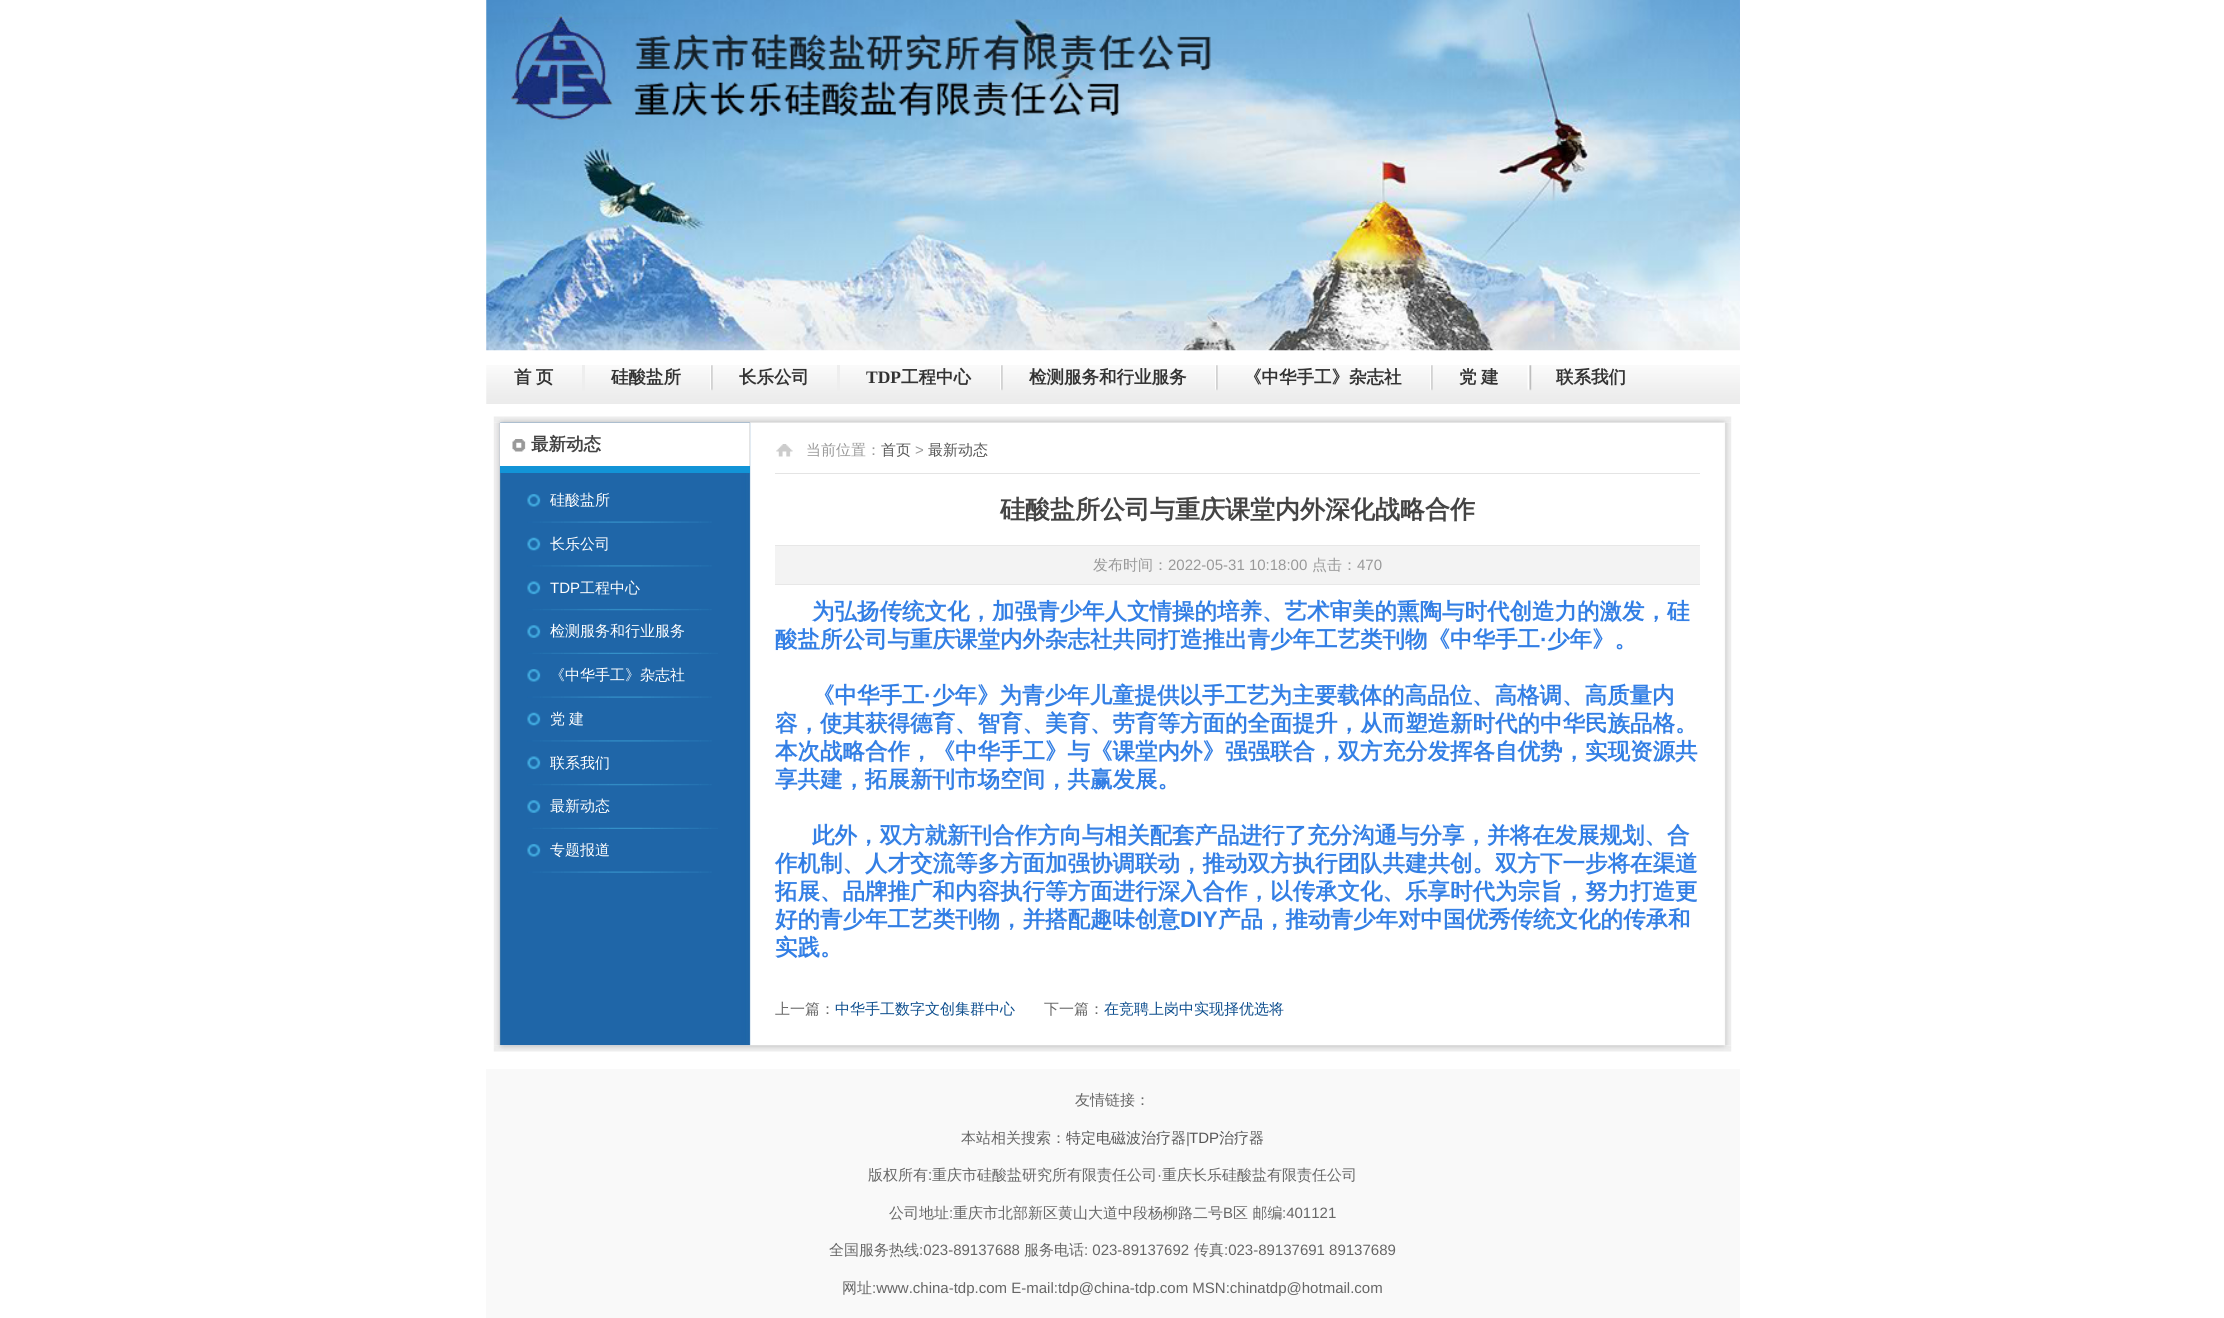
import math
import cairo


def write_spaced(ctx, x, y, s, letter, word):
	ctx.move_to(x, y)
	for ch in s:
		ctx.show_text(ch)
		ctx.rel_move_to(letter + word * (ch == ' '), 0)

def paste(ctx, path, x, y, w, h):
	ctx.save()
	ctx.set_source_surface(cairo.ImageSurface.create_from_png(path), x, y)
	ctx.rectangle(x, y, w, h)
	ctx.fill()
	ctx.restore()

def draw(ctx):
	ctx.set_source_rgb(1, 1, 1)
	ctx.paint()
	paste(ctx, 'media/1.png', 486, 0, 1254, 351)
	paste(ctx, 'media/2.png', 486, 365, 1254, 39)
	ctx.select_font_face('WenQuanYi Zen Hei', cairo.FONT_SLANT_NORMAL, cairo.FONT_WEIGHT_BOLD)
	ctx.set_font_size(17.5)
	ctx.set_source_rgb(0.2, 0.2, 0.2)
	write_spaced(ctx, 514, 383, '首 页', 0, -1)
	ctx.set_source_rgb(0.933, 0.933, 0.933)
	ctx.rectangle(582, 365, 3, 26)
	ctx.fill()
	ctx.set_source_rgb(0.2, 0.2, 0.2)
	ctx.move_to(611, 383)
	ctx.show_text('硅酸盐所')
	paste(ctx, 'media/3.png', 710, 365, 3, 26)
	ctx.move_to(739, 383)
	ctx.show_text('长乐公司')
	ctx.set_source_rgb(0.933, 0.933, 0.933)
	ctx.rectangle(837, 365, 3, 26)
	ctx.fill()
	ctx.select_font_face('Liberation Serif', cairo.FONT_SLANT_NORMAL, cairo.FONT_WEIGHT_BOLD)
	ctx.set_source_rgb(0.2, 0.2, 0.2)
	ctx.move_to(866, 383)
	ctx.show_text('TDP')
	ctx.select_font_face('WenQuanYi Zen Hei', cairo.FONT_SLANT_NORMAL, cairo.FONT_WEIGHT_BOLD)
	ctx.move_to(901, 383)
	ctx.show_text('工程中心')
	paste(ctx, 'media/3.png', 1000, 365, 3, 26)
	ctx.move_to(1029, 383)
	ctx.show_text('检测服务和行业服务')
	paste(ctx, 'media/3.png', 1215, 365, 3, 26)
	ctx.move_to(1244, 383)
	ctx.show_text('《中华手工》杂志社')
	paste(ctx, 'media/3.png', 1430, 365, 3, 26)
	ctx.move_to(1459, 383)
	ctx.show_text('党')
	ctx.move_to(1481, 383)
	ctx.show_text('建')
	paste(ctx, 'media/4.png', 1527, 365, 5, 26)
	ctx.move_to(1556, 383)
	ctx.show_text('联系我们')
	paste(ctx, 'media/5.png', 493, 416, 1239, 7)
	paste(ctx, 'media/6.png', 493, 422, 1239, 624)
	ctx.set_source_rgb(1, 1, 1)
	ctx.rectangle(500, 423, 249, 43)
	ctx.fill()
	paste(ctx, 'media/7.png', 512, 439, 14, 13)
	ctx.set_source_rgb(0.894, 0.894, 0.894)
	ctx.rectangle(749, 423, 1, 43)
	ctx.fill()
	ctx.set_source_rgb(0.267, 0.267, 0.267)
	ctx.move_to(531, 450)
	ctx.show_text('最新动态')
	ctx.set_source_rgb(0.071, 0.58, 0.843)
	ctx.rectangle(500, 466, 250, 7)
	ctx.fill()
	paste(ctx, 'media/8.png', 527, 494, 185, 29)
	ctx.select_font_face('WenQuanYi Zen Hei Medium')
	ctx.set_font_size(15)
	ctx.set_source_rgb(1, 1, 1)
	ctx.move_to(550, 505)
	ctx.show_text('硅酸盐所')
	paste(ctx, 'media/9.png', 527, 537, 185, 30)
	ctx.move_to(550, 549)
	ctx.show_text('长乐公司')
	paste(ctx, 'media/10.png', 527, 581, 185, 30)
	ctx.select_font_face('Liberation Sans')
	ctx.move_to(550, 593)
	ctx.show_text('TDP')
	ctx.select_font_face('WenQuanYi Zen Hei Medium')
	ctx.move_to(580, 593)
	ctx.show_text('工程中心')
	paste(ctx, 'media/11.png', 527, 625, 191, 29)
	ctx.move_to(550, 636)
	ctx.show_text('检测服务和行业服务')
	paste(ctx, 'media/8.png', 527, 669, 185, 29)
	ctx.move_to(550, 680)
	ctx.show_text('《中华手工》杂志社')
	paste(ctx, 'media/9.png', 527, 712, 185, 30)
	ctx.move_to(550, 724)
	ctx.show_text('党')
	ctx.move_to(569, 724)
	ctx.show_text('建')
	paste(ctx, 'media/12.png', 527, 756, 185, 30)
	ctx.move_to(550, 768)
	ctx.show_text('联系我们')
	paste(ctx, 'media/11.png', 527, 800, 191, 29)
	ctx.move_to(550, 811)
	ctx.show_text('最新动态')
	paste(ctx, 'media/8.png', 527, 844, 185, 29)
	ctx.move_to(550, 855)
	ctx.show_text('专题报道')
	paste(ctx, 'media/13.png', 776, 444, 17, 13)
	ctx.set_source_rgb(0.894, 0.894, 0.894)
	ctx.rectangle(775, 473, 925, 1)
	ctx.fill()
	ctx.set_source_rgb(0.6, 0.6, 0.6)
	ctx.move_to(806, 455)
	ctx.show_text('当前位置：')
	ctx.set_source_rgb(0.333, 0.333, 0.333)
	ctx.move_to(881, 455)
	ctx.show_text('首页')
	ctx.select_font_face('Liberation Sans')
	ctx.set_source_rgb(0.6, 0.6, 0.6)
	ctx.move_to(915, 455)
	ctx.show_text('>')
	ctx.select_font_face('WenQuanYi Zen Hei Medium')
	ctx.set_source_rgb(0.333, 0.333, 0.333)
	ctx.move_to(928, 455)
	ctx.show_text('最新动态')
	ctx.select_font_face('WenQuanYi Zen Hei', cairo.FONT_SLANT_NORMAL, cairo.FONT_WEIGHT_BOLD)
	ctx.set_font_size(25)
	ctx.set_source_rgb(0.267, 0.267, 0.267)
	ctx.move_to(1000, 518)
	ctx.show_text('硅酸盐所公司与重庆课堂内外深化战略合作')
	ctx.set_source_rgb(0.953, 0.953, 0.953)
	ctx.rectangle(775, 546, 925, 38)
	ctx.fill()
	ctx.set_source_rgb(0.906, 0.906, 0.906)
	ctx.rectangle(775, 545, 925, 1)
	ctx.rectangle(775, 584, 925, 1)
	ctx.fill()
	ctx.select_font_face('WenQuanYi Zen Hei Medium')
	ctx.set_font_size(15)
	ctx.set_source_rgb(0.6, 0.6, 0.6)
	ctx.move_to(1093, 570)
	ctx.show_text('发布时间：')
	ctx.select_font_face('Liberation Sans')
	ctx.move_to(1168, 570)
	ctx.show_text('2022-05-31 10:18:00')
	ctx.select_font_face('WenQuanYi Zen Hei Medium')
	ctx.move_to(1312, 570)
	ctx.show_text('点击：')
	ctx.select_font_face('Liberation Sans')
	ctx.move_to(1357, 570)
	ctx.show_text('470')
	ctx.select_font_face('WenQuanYi Zen Hei', cairo.FONT_SLANT_NORMAL, cairo.FONT_WEIGHT_BOLD)
	ctx.set_font_size(22.5)
	ctx.set_source_rgb(0.2, 0.498, 0.898)
	ctx.move_to(812, 619)
	ctx.show_text('为弘扬传统文化，加强青少年人文情操的培养、艺术审美的熏陶与时代创造力的激发，硅')
	ctx.move_to(775, 647)
	ctx.show_text('酸盐所公司与重庆课堂内外杂志社共同打造推出青少年工艺类刊物《中华手工')
	ctx.select_font_face('Liberation Sans', cairo.FONT_SLANT_NORMAL, cairo.FONT_WEIGHT_BOLD)
	ctx.move_to(1540, 647)
	ctx.show_text('·')
	ctx.select_font_face('WenQuanYi Zen Hei', cairo.FONT_SLANT_NORMAL, cairo.FONT_WEIGHT_BOLD)
	ctx.move_to(1547, 647)
	ctx.show_text('少年》。')
	ctx.move_to(812, 703)
	ctx.show_text('《中华手工')
	ctx.select_font_face('Liberation Sans', cairo.FONT_SLANT_NORMAL, cairo.FONT_WEIGHT_BOLD)
	ctx.move_to(924, 703)
	ctx.show_text('·')
	ctx.select_font_face('WenQuanYi Zen Hei', cairo.FONT_SLANT_NORMAL, cairo.FONT_WEIGHT_BOLD)
	for x, y, s in [
		(932, 703, '少年》为青少年儿童提供以手工艺为主要载体的高品位、高格调、高质量内'),
		(775, 731, '容，使其获得德育、智育、美育、劳育等方面的全面提升，从而塑造新时代的中华民族品格。'),
		(775, 759, '本次战略合作，《中华手工》与《课堂内外》强强联合，双方充分发挥各自优势，实现资源共'),
		(775, 787, '享共建，拓展新刊市场空间，共赢发展。'),
		(812, 843, '此外，双方就新刊合作方向与相关配套产品进行了充分沟通与分享，并将在发展规划、合'),
		(775, 871, '作机制、人才交流等多方面加强协调联动，推动双方执行团队共建共创。双方下一步将在渠道'),
		(775, 899, '拓展、品牌推广和内容执行等方面进行深入合作，以传承文化、乐享时代为宗旨，努力打造更'),
		(775, 927, '好的青少年工艺类刊物，并搭配趣味创意'),
	]:
		ctx.move_to(x, y)
		ctx.show_text(s)
	ctx.select_font_face('Liberation Sans', cairo.FONT_SLANT_NORMAL, cairo.FONT_WEIGHT_BOLD)
	ctx.move_to(1180, 927)
	ctx.show_text('DIY')
	ctx.select_font_face('WenQuanYi Zen Hei', cairo.FONT_SLANT_NORMAL, cairo.FONT_WEIGHT_BOLD)
	ctx.move_to(1218, 927)
	ctx.show_text('产品，推动青少年对中国优秀传统文化的传承和')
	ctx.move_to(775, 955)
	ctx.show_text('实践。')
	ctx.select_font_face('WenQuanYi Zen Hei Medium')
	ctx.set_font_size(15)
	ctx.set_source_rgb(0.4, 0.4, 0.4)
	ctx.move_to(775, 1014)
	ctx.show_text('上一篇：')
	ctx.set_source_rgb(0.047, 0.302, 0.553)
	ctx.move_to(835, 1014)
	ctx.show_text('中华手工数字文创集群中心')
	ctx.set_source_rgb(0.4, 0.4, 0.4)
	ctx.move_to(1044, 1014)
	ctx.show_text('下一篇：')
	ctx.set_source_rgb(0.047, 0.302, 0.553)
	ctx.move_to(1104, 1014)
	ctx.show_text('在竞聘上岗中实现择优选将')
	paste(ctx, 'media/14.png', 493, 1045, 1239, 7)
	ctx.set_source_rgb(0.973, 0.973, 0.973)
	ctx.rectangle(486, 1069, 1254, 249)
	ctx.fill()
	ctx.set_source_rgb(0.4, 0.4, 0.4)
	ctx.move_to(1075, 1105)
	ctx.show_text('友情链接：')
	ctx.move_to(961, 1143)
	ctx.show_text('本站相关搜索：')
	ctx.set_source_rgb(0.333, 0.333, 0.333)
	ctx.move_to(1066, 1143)
	ctx.show_text('特定电磁波治疗器')
	ctx.select_font_face('Liberation Sans')
	ctx.set_source_rgb(0.4, 0.4, 0.4)
	ctx.move_to(1186, 1143)
	ctx.show_text('|')
	ctx.set_source_rgb(0.333, 0.333, 0.333)
	ctx.move_to(1189, 1143)
	ctx.show_text('TDP')
	ctx.select_font_face('WenQuanYi Zen Hei Medium')
	ctx.move_to(1219, 1143)
	ctx.show_text('治疗器')
	ctx.set_source_rgb(0.4, 0.4, 0.4)
	ctx.move_to(868, 1180)
	ctx.show_text('版权所有')
	ctx.select_font_face('Liberation Sans')
	ctx.move_to(928, 1180)
	ctx.show_text(':')
	ctx.select_font_face('WenQuanYi Zen Hei Medium')
	ctx.move_to(932, 1180)
	ctx.show_text('重庆市硅酸盐研究所有限责任公司')
	ctx.select_font_face('Liberation Sans')
	ctx.move_to(1157, 1180)
	ctx.show_text('·')
	ctx.select_font_face('WenQuanYi Zen Hei Medium')
	ctx.move_to(1162, 1180)
	ctx.show_text('重庆长乐硅酸盐有限责任公司')
	ctx.move_to(889, 1218)
	ctx.show_text('公司地址')
	ctx.select_font_face('Liberation Sans')
	ctx.move_to(949, 1218)
	ctx.show_text(':')
	ctx.select_font_face('WenQuanYi Zen Hei Medium')
	ctx.move_to(953, 1218)
	ctx.show_text('重庆市北部新区黄山大道中段杨柳路二号')
	ctx.select_font_face('Liberation Sans')
	ctx.move_to(1223, 1218)
	ctx.show_text('B')
	ctx.select_font_face('WenQuanYi Zen Hei Medium')
	ctx.move_to(1233, 1218)
	ctx.show_text('区 邮编')
	ctx.select_font_face('Liberation Sans')
	ctx.move_to(1282, 1218)
	ctx.show_text(':401121')
	ctx.select_font_face('WenQuanYi Zen Hei Medium')
	ctx.move_to(829, 1255)
	ctx.show_text('全国服务热线')
	ctx.select_font_face('Liberation Sans')
	ctx.move_to(919, 1255)
	ctx.show_text(':023-89137688')
	ctx.select_font_face('WenQuanYi Zen Hei Medium')
	ctx.move_to(1024, 1255)
	ctx.show_text('服务电话')
	ctx.select_font_face('Liberation Sans')
	ctx.move_to(1084, 1255)
	ctx.show_text(': 023-89137692')
	ctx.select_font_face('WenQuanYi Zen Hei Medium')
	ctx.move_to(1194, 1255)
	ctx.show_text('传真')
	ctx.select_font_face('Liberation Sans')
	ctx.move_to(1224, 1255)
	ctx.show_text(':023-89137691 89137689')
	ctx.select_font_face('WenQuanYi Zen Hei Medium')
	ctx.move_to(842, 1293)
	ctx.show_text('网址')
	ctx.select_font_face('Liberation Sans')
	ctx.move_to(872, 1293)
	ctx.show_text(':www.china-tdp.com E-mail:tdp@china-tdp.com MSN:chinatdp@hotmail.com')


surface = cairo.ImageSurface(cairo.FORMAT_RGB24, 2224, 1318)
ctx = cairo.Context(surface)
options = cairo.FontOptions()
options.set_hint_metrics(cairo.HINT_METRICS_OFF)
options.set_hint_style(cairo.HINT_STYLE_NONE)
ctx.set_font_options(options)
ctx.set_miter_limit(4)
draw(ctx)
surface.write_to_png('image.png')
